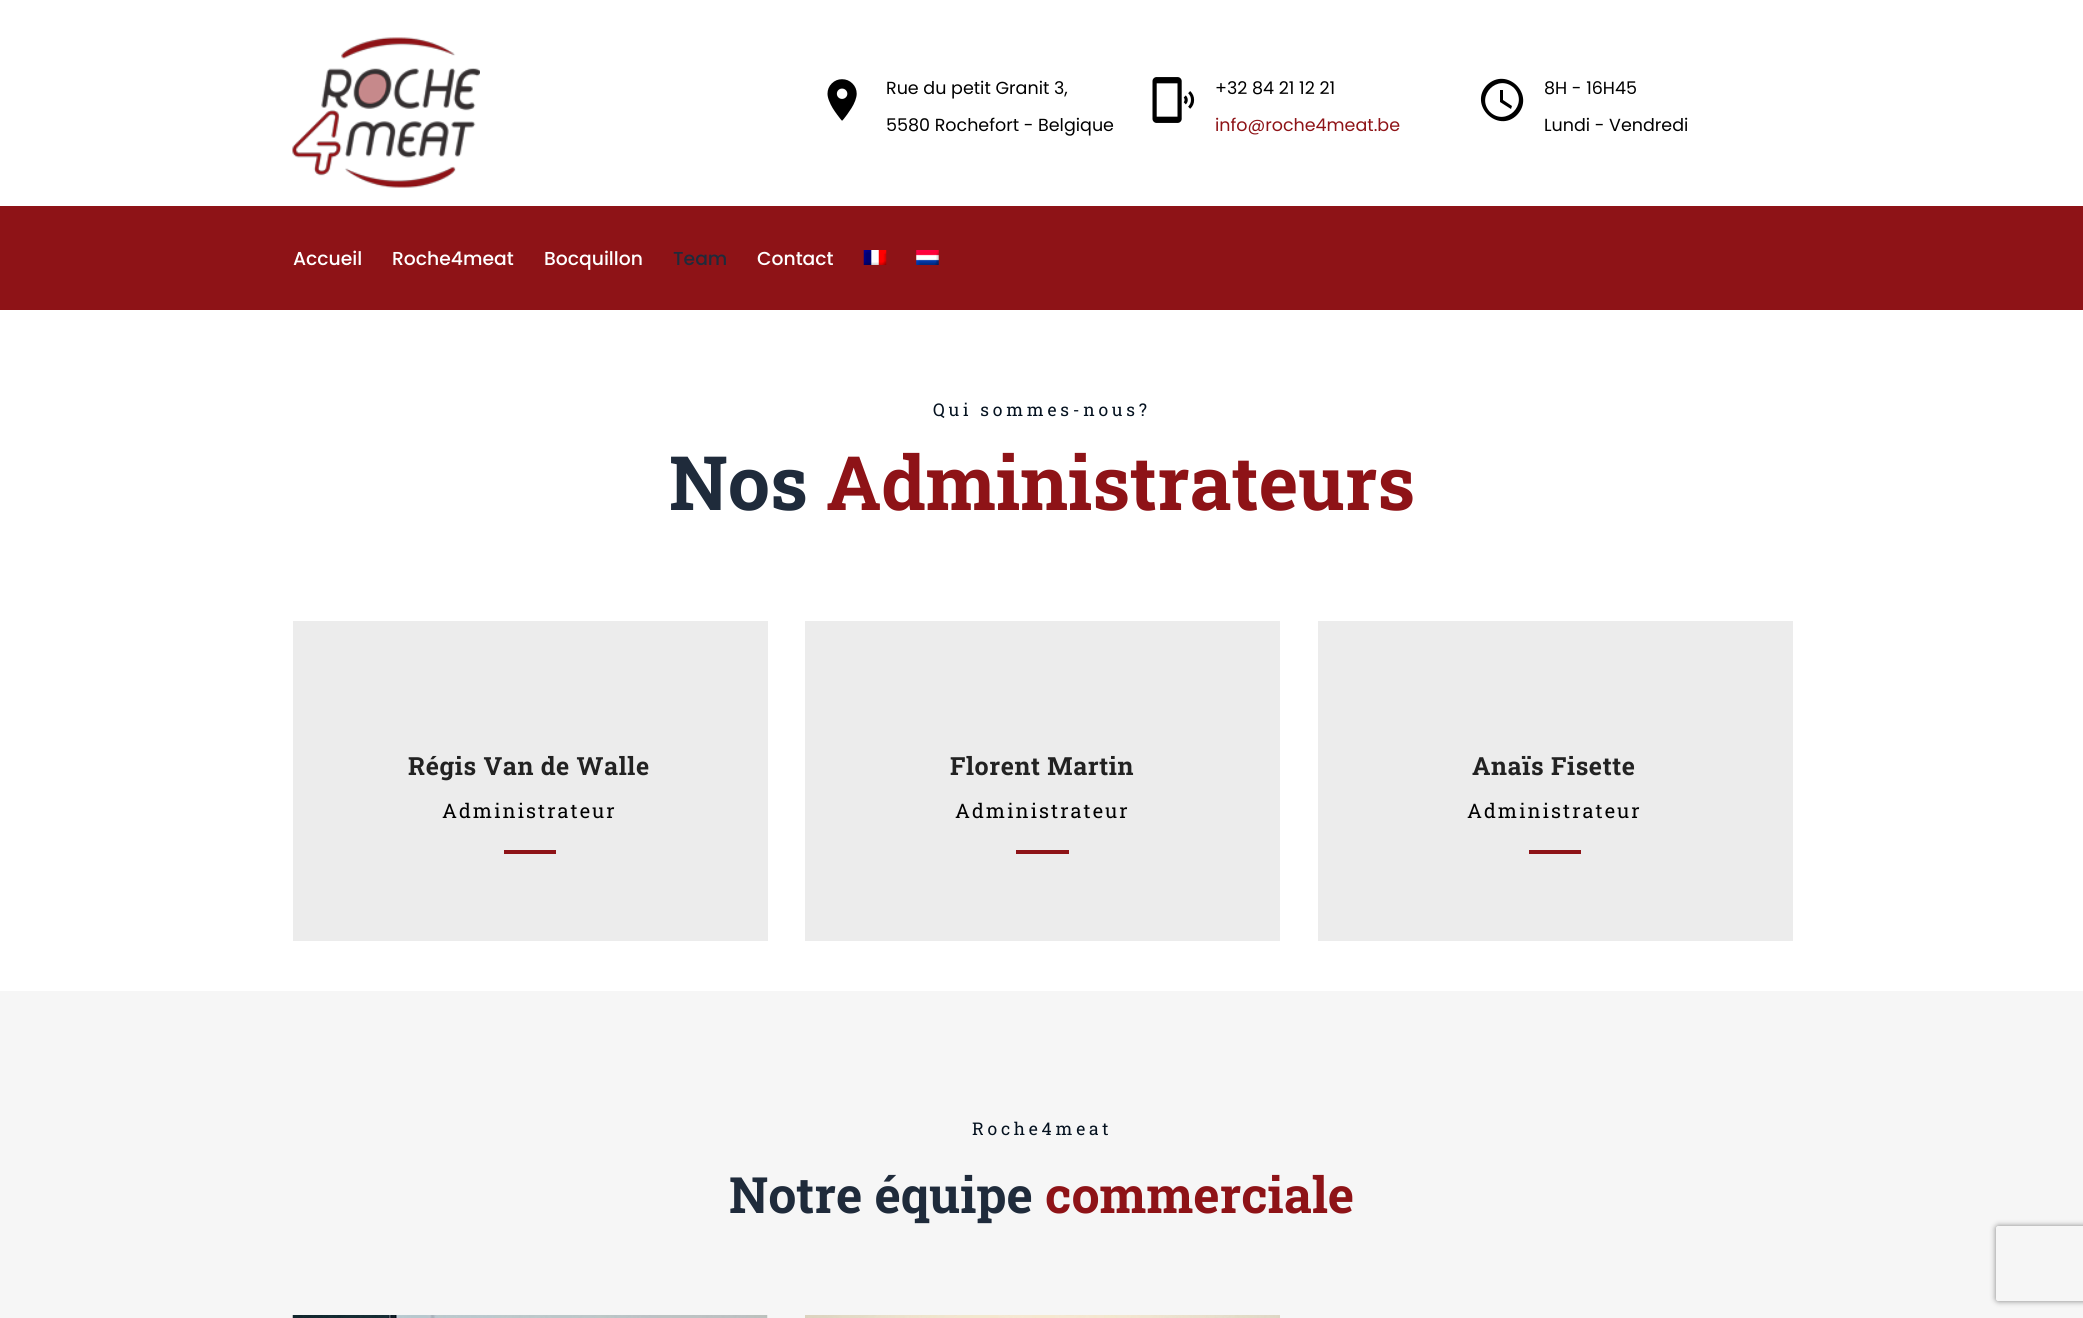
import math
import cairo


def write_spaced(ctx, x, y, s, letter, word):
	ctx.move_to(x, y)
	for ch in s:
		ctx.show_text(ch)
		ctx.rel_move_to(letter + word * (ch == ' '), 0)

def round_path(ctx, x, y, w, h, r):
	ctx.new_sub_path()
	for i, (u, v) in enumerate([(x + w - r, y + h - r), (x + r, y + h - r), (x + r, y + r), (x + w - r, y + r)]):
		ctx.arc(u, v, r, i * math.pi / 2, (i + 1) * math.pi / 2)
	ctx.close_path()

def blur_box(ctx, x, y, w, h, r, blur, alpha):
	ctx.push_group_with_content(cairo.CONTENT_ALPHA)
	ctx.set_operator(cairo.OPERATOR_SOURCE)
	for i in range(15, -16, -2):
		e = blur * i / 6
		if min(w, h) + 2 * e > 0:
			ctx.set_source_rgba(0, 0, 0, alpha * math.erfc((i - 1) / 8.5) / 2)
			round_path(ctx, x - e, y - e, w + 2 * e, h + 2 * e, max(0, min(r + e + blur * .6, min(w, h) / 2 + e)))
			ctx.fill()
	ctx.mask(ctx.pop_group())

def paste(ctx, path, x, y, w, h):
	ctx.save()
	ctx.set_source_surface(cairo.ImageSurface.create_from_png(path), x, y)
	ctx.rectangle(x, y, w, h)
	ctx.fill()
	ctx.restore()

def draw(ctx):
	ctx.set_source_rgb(1, 1, 1)
	ctx.paint()
	paste(ctx, 'media/1.png', 292, 37, 188, 151)
	paste(ctx, 'media/2.png', 827, 79, 30, 42)
	ctx.select_font_face('Poppins')
	ctx.set_font_size(17.5)
	ctx.set_source_rgb(0, 0, 0)
	ctx.move_to(886, 94)
	ctx.show_text('Rue du petit Granit 3,')
	ctx.move_to(886, 131)
	ctx.show_text('5580 Rochefort - Belgique')
	paste(ctx, 'media/3.png', 1152, 77, 43, 46)
	ctx.move_to(1215, 94)
	ctx.show_text('+32 84 21 12 21')
	ctx.set_source_rgb(0.557, 0.075, 0.09)
	ctx.move_to(1215, 131)
	ctx.show_text('info@roche4meat.be')
	ctx.set_source_rgb(0, 0, 0)
	ctx.new_path()
	ctx.move_to(1487, 85)
	ctx.curve_to(1507, 66, 1536, 95, 1517, 115)
	ctx.curve_to(1498, 134, 1468, 105, 1487, 85)
	ctx.close_path()
	ctx.move_to(1490, 112)
	ctx.curve_to(1506, 127, 1529, 104, 1514, 88)
	ctx.curve_to(1498, 73, 1475, 96, 1490, 112)
	ctx.close_path()
	ctx.move_to(1503, 90)
	ctx.line_to(1503, 100)
	ctx.line_to(1512, 106)
	ctx.line_to(1511, 109)
	ctx.line_to(1500, 102)
	ctx.line_to(1500, 90)
	ctx.close_path()
	ctx.fill()
	ctx.move_to(1544, 94)
	ctx.show_text('8H - 16H45')
	ctx.move_to(1544, 131)
	ctx.show_text('Lundi - Vendredi')
	ctx.set_source_rgb(0.557, 0.075, 0.09)
	ctx.rectangle(0, 206, 2083, 104)
	ctx.fill()
	ctx.select_font_face('Poppins Medium')
	ctx.set_font_size(18.75)
	ctx.set_source_rgb(1, 1, 1)
	for x, y, s in [
		(293, 265, 'Accueil'),
		(392, 265, 'Roche4meat'),
		(544, 265, 'Bocquillon'),
	]:
		ctx.move_to(x, y)
		ctx.show_text(s)
	ctx.set_source_rgb(0.122, 0.169, 0.231)
	ctx.move_to(673, 265)
	ctx.show_text('Team')
	ctx.set_source_rgb(1, 1, 1)
	ctx.move_to(757, 265)
	ctx.show_text('Contact')
	paste(ctx, 'media/4.png', 863, 250, 24, 15)
	paste(ctx, 'media/5.png', 916, 250, 23, 15)
	ctx.select_font_face('Roboto Slab')
	ctx.set_font_size(17.5)
	ctx.set_source_rgb(0.02, 0.071, 0.125)
	write_spaced(ctx, 933, 416, 'Qui sommes-nous?', 3.75, 0)
	ctx.select_font_face('Roboto Slab', cairo.FONT_SLANT_NORMAL, cairo.FONT_WEIGHT_BOLD)
	ctx.set_font_size(75)
	ctx.set_source_rgb(0.122, 0.169, 0.231)
	ctx.move_to(669, 510)
	ctx.show_text('Nos')
	ctx.set_source_rgb(0.557, 0.075, 0.09)
	ctx.move_to(826, 510)
	ctx.show_text('Administrateurs')
	ctx.set_source_rgb(0.925, 0.925, 0.925)
	ctx.rectangle(293, 621, 475, 320)
	ctx.fill()
	ctx.set_font_size(25)
	ctx.set_source_rgb(0.133, 0.133, 0.133)
	write_spaced(ctx, 408, 775, 'Régis Van de Walle', 0.6, 0)
	ctx.select_font_face('Roboto Slab')
	ctx.set_font_size(20)
	ctx.set_source_rgb(0, 0, 0)
	write_spaced(ctx, 442, 818, 'Administrateur', 2, 0)
	ctx.set_source_rgb(0.557, 0.075, 0.09)
	ctx.rectangle(504, 850, 52, 4)
	ctx.fill()
	ctx.set_source_rgb(0.925, 0.925, 0.925)
	ctx.rectangle(805, 621, 475, 320)
	ctx.fill()
	ctx.select_font_face('Roboto Slab', cairo.FONT_SLANT_NORMAL, cairo.FONT_WEIGHT_BOLD)
	ctx.set_font_size(25)
	ctx.set_source_rgb(0.133, 0.133, 0.133)
	write_spaced(ctx, 950, 775, 'Florent Martin', 0.6, 0)
	ctx.select_font_face('Roboto Slab')
	ctx.set_font_size(20)
	ctx.set_source_rgb(0, 0, 0)
	write_spaced(ctx, 955, 818, 'Administrateur', 2, 0)
	ctx.set_source_rgb(0.557, 0.075, 0.09)
	ctx.rectangle(1016, 850, 53, 4)
	ctx.fill()
	ctx.set_source_rgb(0.925, 0.925, 0.925)
	ctx.rectangle(1318, 621, 475, 320)
	ctx.fill()
	ctx.select_font_face('Roboto Slab', cairo.FONT_SLANT_NORMAL, cairo.FONT_WEIGHT_BOLD)
	ctx.set_font_size(25)
	ctx.set_source_rgb(0.133, 0.133, 0.133)
	write_spaced(ctx, 1472, 775, 'Anaïs Fisette', 0.6, 0)
	ctx.select_font_face('Roboto Slab')
	ctx.set_font_size(20)
	ctx.set_source_rgb(0, 0, 0)
	write_spaced(ctx, 1467, 818, 'Administrateur', 2, 0)
	ctx.set_source_rgb(0.557, 0.075, 0.09)
	ctx.rectangle(1529, 850, 52, 4)
	ctx.fill()
	ctx.set_source_rgb(0.961, 0.961, 0.961)
	ctx.rectangle(0, 991, 2083, 327)
	ctx.fill()
	ctx.set_font_size(17.5)
	ctx.set_source_rgb(0.02, 0.071, 0.125)
	write_spaced(ctx, 972, 1135, 'Roche4meat', 3.75, 0)
	ctx.select_font_face('Roboto Slab', cairo.FONT_SLANT_NORMAL, cairo.FONT_WEIGHT_BOLD)
	ctx.set_font_size(50)
	ctx.set_source_rgb(0.122, 0.169, 0.231)
	ctx.move_to(729, 1213)
	ctx.show_text('Notre équipe')
	ctx.set_source_rgb(0.557, 0.075, 0.09)
	ctx.move_to(1045, 1213)
	ctx.show_text('commerciale')
	paste(ctx, 'media/6.png', 292, 1315, 476, 3)
	paste(ctx, 'media/7.png', 805, 1315, 475, 3)
	ctx.save()
	ctx.set_fill_rule(cairo.FILL_RULE_EVEN_ODD)
	ctx.new_path()
	ctx.move_to(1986, 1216)
	ctx.line_to(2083, 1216)
	ctx.line_to(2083, 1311)
	ctx.line_to(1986, 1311)
	ctx.close_path()
	ctx.move_to(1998.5, 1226)
	ctx.line_to(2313.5, 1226)
	ctx.curve_to(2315, 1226, 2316, 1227, 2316, 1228.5)
	ctx.line_to(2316, 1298.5)
	ctx.curve_to(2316, 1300, 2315, 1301, 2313.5, 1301)
	ctx.line_to(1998.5, 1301)
	ctx.curve_to(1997, 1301, 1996, 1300, 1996, 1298.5)
	ctx.line_to(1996, 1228.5)
	ctx.curve_to(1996, 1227, 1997, 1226, 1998.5, 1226)
	ctx.close_path()
	ctx.clip()
	ctx.set_source_rgb(0.502, 0.502, 0.502)
	blur_box(ctx, 1996, 1226, 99, 75, 2.5, 3, 1)
	ctx.restore()


surface = cairo.ImageSurface(cairo.FORMAT_RGB24, 2083, 1318)
ctx = cairo.Context(surface)
options = cairo.FontOptions()
options.set_hint_metrics(cairo.HINT_METRICS_OFF)
options.set_hint_style(cairo.HINT_STYLE_NONE)
ctx.set_font_options(options)
ctx.set_miter_limit(4)
draw(ctx)
surface.write_to_png('image.png')
